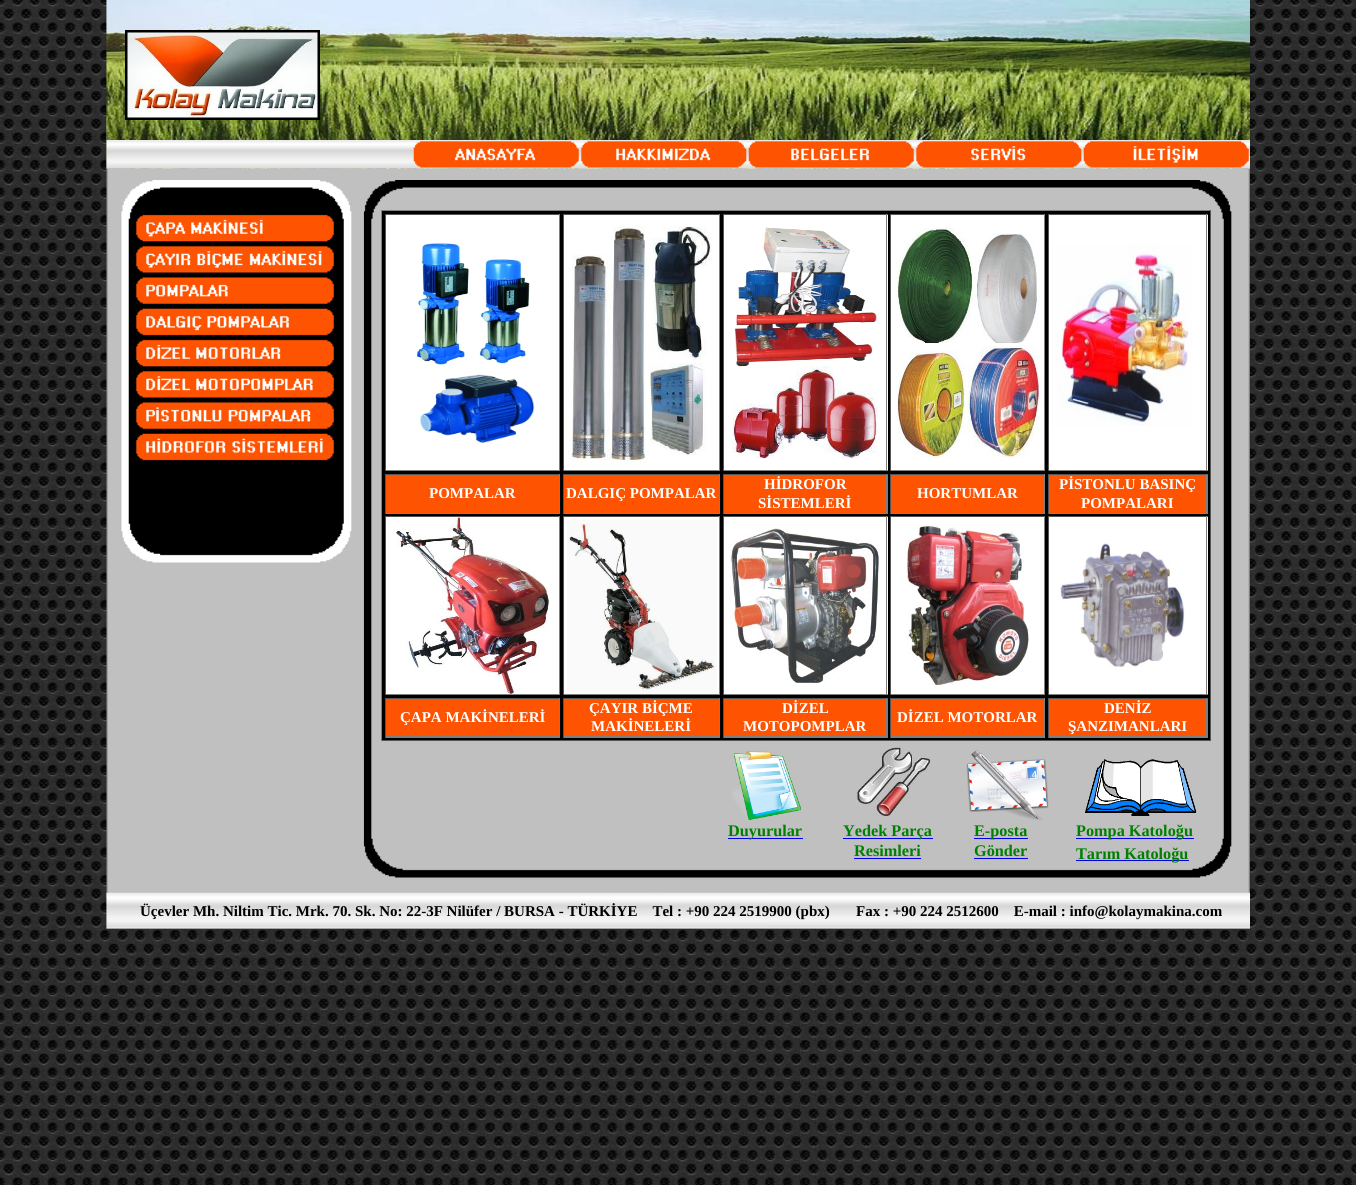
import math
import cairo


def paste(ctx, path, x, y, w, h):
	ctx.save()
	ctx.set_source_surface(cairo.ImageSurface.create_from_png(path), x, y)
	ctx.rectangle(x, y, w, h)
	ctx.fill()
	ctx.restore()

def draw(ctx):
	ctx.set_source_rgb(1, 1, 1)
	ctx.paint()
	paste(ctx, 'media/1.png', 0, 0, 1356, 1185)
	paste(ctx, 'media/4.png', 106, 118, 1144, 780)
	paste(ctx, 'media/2.png', 106, 0, 1144, 169)
	ctx.rectangle(126.5, 31.5, 192, 87)
	ctx.set_source_rgb(0, 0, 0)
	ctx.set_line_width(3)
	ctx.stroke()
	paste(ctx, 'media/3.png', 127, 32, 191, 86)
	paste(ctx, 'media/5.png', 106, 140, 1144, 29)
	paste(ctx, 'media/6.png', 413, 141, 166, 27)
	paste(ctx, 'media/7.png', 581, 141, 166, 27)
	paste(ctx, 'media/8.png', 748, 141, 166, 27)
	paste(ctx, 'media/9.png', 916, 141, 166, 27)
	paste(ctx, 'media/10.png', 1083, 141, 166, 27)
	paste(ctx, 'media/11.png', 121, 180, 231, 383)
	paste(ctx, 'media/12.png', 363, 180, 869, 698)
	paste(ctx, 'media/13.png', 136, 214, 198, 28)
	paste(ctx, 'media/14.png', 136, 246, 198, 27)
	paste(ctx, 'media/15.png', 136, 277, 198, 27)
	paste(ctx, 'media/16.png', 136, 308, 198, 28)
	paste(ctx, 'media/17.png', 136, 339, 198, 28)
	paste(ctx, 'media/18.png', 136, 371, 198, 27)
	paste(ctx, 'media/19.png', 136, 402, 198, 27)
	paste(ctx, 'media/20.png', 136, 433, 198, 28)
	ctx.rectangle(382, 211, 828, 529)
	ctx.fill()
	ctx.set_source_rgb(0.502, 0.502, 0.502)
	ctx.rectangle(381, 210, 830, 1)
	ctx.fill()
	ctx.set_source_rgb(0.333, 0.333, 0.333)
	ctx.rectangle(1210, 210, 1, 531)
	ctx.rectangle(381, 740, 830, 1)
	ctx.fill()
	ctx.set_source_rgb(0.502, 0.502, 0.502)
	ctx.rectangle(381, 210, 1, 531)
	ctx.fill()
	ctx.set_source_rgb(1, 1, 1)
	ctx.rectangle(386, 215, 173, 255)
	ctx.fill()
	ctx.set_source_rgb(0.333, 0.333, 0.333)
	ctx.rectangle(385, 214, 175, 1)
	ctx.fill()
	ctx.set_source_rgb(0.502, 0.502, 0.502)
	ctx.rectangle(559, 214, 1, 257)
	ctx.rectangle(385, 470, 175, 1)
	ctx.fill()
	ctx.set_source_rgb(0.333, 0.333, 0.333)
	ctx.rectangle(385, 214, 1, 257)
	ctx.fill()
	paste(ctx, 'media/21.png', 416, 243, 114, 122)
	paste(ctx, 'media/22.png', 420, 374, 115, 69)
	ctx.set_source_rgb(1, 1, 1)
	ctx.rectangle(564, 215, 155, 255)
	ctx.fill()
	ctx.set_source_rgb(0.333, 0.333, 0.333)
	ctx.rectangle(563, 214, 157, 1)
	ctx.fill()
	ctx.set_source_rgb(0.502, 0.502, 0.502)
	ctx.rectangle(719, 214, 1, 257)
	ctx.rectangle(563, 470, 157, 1)
	ctx.fill()
	ctx.set_source_rgb(0.333, 0.333, 0.333)
	ctx.rectangle(563, 214, 1, 257)
	ctx.fill()
	paste(ctx, 'media/23.png', 568, 226, 144, 240)
	ctx.set_source_rgb(1, 1, 1)
	ctx.rectangle(724, 215, 164, 255)
	ctx.fill()
	ctx.set_source_rgb(0.333, 0.333, 0.333)
	ctx.rectangle(723, 214, 165, 1)
	ctx.fill()
	ctx.set_source_rgb(0.502, 0.502, 0.502)
	ctx.rectangle(886, 214, 1, 257)
	ctx.rectangle(723, 470, 165, 1)
	ctx.fill()
	ctx.set_source_rgb(0.333, 0.333, 0.333)
	ctx.rectangle(723, 214, 1, 257)
	ctx.fill()
	paste(ctx, 'media/24.png', 735, 227, 142, 140)
	paste(ctx, 'media/25.png', 732, 366, 146, 93)
	ctx.set_source_rgb(1, 1, 1)
	ctx.rectangle(891, 215, 153, 255)
	ctx.fill()
	ctx.set_source_rgb(0.333, 0.333, 0.333)
	ctx.rectangle(890, 214, 155, 1)
	ctx.fill()
	ctx.set_source_rgb(0.502, 0.502, 0.502)
	ctx.rectangle(1044, 214, 1, 257)
	ctx.rectangle(890, 470, 155, 1)
	ctx.fill()
	ctx.set_source_rgb(0.333, 0.333, 0.333)
	ctx.rectangle(890, 214, 1, 257)
	ctx.fill()
	paste(ctx, 'media/26.png', 896, 227, 77, 117)
	paste(ctx, 'media/27.png', 974, 233, 64, 111)
	paste(ctx, 'media/28.png', 895, 351, 73, 107)
	paste(ctx, 'media/29.png', 967, 346, 74, 113)
	ctx.set_source_rgb(1, 1, 1)
	ctx.rectangle(1049, 215, 159, 255)
	ctx.fill()
	ctx.set_source_rgb(0.333, 0.333, 0.333)
	ctx.rectangle(1048, 214, 160, 1)
	ctx.fill()
	ctx.set_source_rgb(0.502, 0.502, 0.502)
	ctx.rectangle(1206, 214, 1, 257)
	ctx.rectangle(1048, 470, 160, 1)
	ctx.fill()
	ctx.set_source_rgb(0.333, 0.333, 0.333)
	ctx.rectangle(1048, 214, 1, 257)
	ctx.fill()
	paste(ctx, 'media/30.png', 1051, 245, 142, 181)
	ctx.set_source_rgb(0.996, 0.329, 0.008)
	ctx.rectangle(386, 475, 173, 38)
	ctx.fill()
	ctx.set_source_rgb(0.333, 0.333, 0.333)
	ctx.rectangle(385, 474, 175, 1)
	ctx.fill()
	ctx.set_source_rgb(0.502, 0.502, 0.502)
	ctx.rectangle(559, 474, 1, 40)
	ctx.rectangle(385, 513, 175, 1)
	ctx.fill()
	ctx.set_source_rgb(0.333, 0.333, 0.333)
	ctx.rectangle(385, 474, 1, 40)
	ctx.fill()
	ctx.select_font_face('Liberation Serif', cairo.FONT_SLANT_NORMAL, cairo.FONT_WEIGHT_BOLD)
	ctx.set_font_size(15)
	ctx.set_source_rgb(1, 1, 1)
	ctx.move_to(429, 498)
	ctx.show_text('POMPALAR')
	ctx.set_source_rgb(0.996, 0.329, 0.008)
	ctx.rectangle(564, 475, 155, 38)
	ctx.fill()
	ctx.set_source_rgb(0.333, 0.333, 0.333)
	ctx.rectangle(563, 474, 157, 1)
	ctx.fill()
	ctx.set_source_rgb(0.502, 0.502, 0.502)
	ctx.rectangle(719, 474, 1, 40)
	ctx.rectangle(563, 513, 157, 1)
	ctx.fill()
	ctx.set_source_rgb(0.333, 0.333, 0.333)
	ctx.rectangle(563, 474, 1, 40)
	ctx.fill()
	ctx.set_source_rgb(1, 1, 1)
	ctx.move_to(566, 498)
	ctx.show_text('DALGIÇ POMPALAR')
	ctx.set_source_rgb(0.996, 0.329, 0.008)
	ctx.rectangle(724, 475, 164, 38)
	ctx.fill()
	ctx.set_source_rgb(0.333, 0.333, 0.333)
	ctx.rectangle(723, 474, 165, 1)
	ctx.fill()
	ctx.set_source_rgb(0.502, 0.502, 0.502)
	ctx.rectangle(886, 474, 1, 40)
	ctx.rectangle(723, 513, 165, 1)
	ctx.fill()
	ctx.set_source_rgb(0.333, 0.333, 0.333)
	ctx.rectangle(723, 474, 1, 40)
	ctx.fill()
	ctx.set_source_rgb(1, 1, 1)
	ctx.move_to(764, 489)
	ctx.show_text('HİDROFOR')
	ctx.move_to(758, 508)
	ctx.show_text('SİSTEMLERİ')
	ctx.set_source_rgb(0.996, 0.329, 0.008)
	ctx.rectangle(891, 475, 153, 38)
	ctx.fill()
	ctx.set_source_rgb(0.333, 0.333, 0.333)
	ctx.rectangle(890, 474, 155, 1)
	ctx.fill()
	ctx.set_source_rgb(0.502, 0.502, 0.502)
	ctx.rectangle(1044, 474, 1, 40)
	ctx.rectangle(890, 513, 155, 1)
	ctx.fill()
	ctx.set_source_rgb(0.333, 0.333, 0.333)
	ctx.rectangle(890, 474, 1, 40)
	ctx.fill()
	ctx.set_source_rgb(1, 1, 1)
	ctx.move_to(917, 498)
	ctx.show_text('HORTUMLAR')
	ctx.set_source_rgb(0.996, 0.329, 0.008)
	ctx.rectangle(1049, 475, 159, 38)
	ctx.fill()
	ctx.set_source_rgb(0.333, 0.333, 0.333)
	ctx.rectangle(1048, 474, 160, 1)
	ctx.fill()
	ctx.set_source_rgb(0.502, 0.502, 0.502)
	ctx.rectangle(1206, 474, 1, 40)
	ctx.rectangle(1048, 513, 160, 1)
	ctx.fill()
	ctx.set_source_rgb(0.333, 0.333, 0.333)
	ctx.rectangle(1048, 474, 1, 40)
	ctx.fill()
	ctx.set_source_rgb(1, 1, 1)
	ctx.move_to(1059, 489)
	ctx.show_text('PİSTONLU BASINÇ')
	ctx.move_to(1081, 508)
	ctx.show_text('POMPALARI')
	ctx.rectangle(386, 517, 173, 177)
	ctx.fill()
	ctx.set_source_rgb(0.333, 0.333, 0.333)
	ctx.rectangle(385, 516, 175, 1)
	ctx.fill()
	ctx.set_source_rgb(0.502, 0.502, 0.502)
	ctx.rectangle(559, 516, 1, 179)
	ctx.rectangle(385, 694, 175, 1)
	ctx.fill()
	ctx.set_source_rgb(0.333, 0.333, 0.333)
	ctx.rectangle(385, 516, 1, 179)
	ctx.fill()
	paste(ctx, 'media/31.png', 396, 517, 153, 177)
	ctx.set_source_rgb(1, 1, 1)
	ctx.rectangle(564, 517, 155, 177)
	ctx.fill()
	ctx.set_source_rgb(0.333, 0.333, 0.333)
	ctx.rectangle(563, 516, 157, 1)
	ctx.fill()
	ctx.set_source_rgb(0.502, 0.502, 0.502)
	ctx.rectangle(719, 516, 1, 179)
	ctx.rectangle(563, 694, 157, 1)
	ctx.fill()
	ctx.set_source_rgb(0.333, 0.333, 0.333)
	ctx.rectangle(563, 516, 1, 179)
	ctx.fill()
	paste(ctx, 'media/32.png', 567, 519, 150, 175)
	ctx.set_source_rgb(1, 1, 1)
	ctx.rectangle(724, 517, 164, 177)
	ctx.fill()
	ctx.set_source_rgb(0.333, 0.333, 0.333)
	ctx.rectangle(723, 516, 165, 1)
	ctx.fill()
	ctx.set_source_rgb(0.502, 0.502, 0.502)
	ctx.rectangle(886, 516, 1, 179)
	ctx.rectangle(723, 694, 165, 1)
	ctx.fill()
	ctx.set_source_rgb(0.333, 0.333, 0.333)
	ctx.rectangle(723, 516, 1, 179)
	ctx.fill()
	paste(ctx, 'media/33.png', 730, 528, 149, 156)
	ctx.set_source_rgb(1, 1, 1)
	ctx.rectangle(891, 517, 153, 177)
	ctx.fill()
	ctx.set_source_rgb(0.333, 0.333, 0.333)
	ctx.rectangle(890, 516, 155, 1)
	ctx.fill()
	ctx.set_source_rgb(0.502, 0.502, 0.502)
	ctx.rectangle(1044, 516, 1, 179)
	ctx.rectangle(890, 694, 155, 1)
	ctx.fill()
	ctx.set_source_rgb(0.333, 0.333, 0.333)
	ctx.rectangle(890, 516, 1, 179)
	ctx.fill()
	paste(ctx, 'media/34.png', 907, 526, 122, 159)
	ctx.set_source_rgb(1, 1, 1)
	ctx.rectangle(1049, 517, 159, 177)
	ctx.fill()
	ctx.set_source_rgb(0.333, 0.333, 0.333)
	ctx.rectangle(1048, 516, 160, 1)
	ctx.fill()
	ctx.set_source_rgb(0.502, 0.502, 0.502)
	ctx.rectangle(1206, 516, 1, 179)
	ctx.rectangle(1048, 694, 160, 1)
	ctx.fill()
	ctx.set_source_rgb(0.333, 0.333, 0.333)
	ctx.rectangle(1048, 516, 1, 179)
	ctx.fill()
	paste(ctx, 'media/35.png', 1059, 542, 126, 126)
	ctx.set_source_rgb(0.996, 0.329, 0.008)
	ctx.rectangle(386, 699, 173, 39)
	ctx.fill()
	ctx.set_source_rgb(0.333, 0.333, 0.333)
	ctx.rectangle(385, 698, 175, 1)
	ctx.fill()
	ctx.set_source_rgb(0.502, 0.502, 0.502)
	ctx.rectangle(559, 698, 1, 40)
	ctx.rectangle(385, 736, 175, 1)
	ctx.fill()
	ctx.set_source_rgb(0.333, 0.333, 0.333)
	ctx.rectangle(385, 698, 1, 40)
	ctx.fill()
	ctx.set_source_rgb(1, 1, 1)
	ctx.move_to(400, 722)
	ctx.show_text('ÇAPA MAKİNELERİ')
	ctx.set_source_rgb(0.996, 0.329, 0.008)
	ctx.rectangle(564, 699, 155, 39)
	ctx.fill()
	ctx.set_source_rgb(0.333, 0.333, 0.333)
	ctx.rectangle(563, 698, 157, 1)
	ctx.fill()
	ctx.set_source_rgb(0.502, 0.502, 0.502)
	ctx.rectangle(719, 698, 1, 40)
	ctx.rectangle(563, 736, 157, 1)
	ctx.fill()
	ctx.set_source_rgb(0.333, 0.333, 0.333)
	ctx.rectangle(563, 698, 1, 40)
	ctx.fill()
	ctx.set_source_rgb(1, 1, 1)
	ctx.move_to(589, 713)
	ctx.show_text('ÇAYIR BİÇME')
	ctx.move_to(591, 731)
	ctx.show_text('MAKİNELERİ')
	ctx.set_source_rgb(0.996, 0.329, 0.008)
	ctx.rectangle(724, 699, 164, 39)
	ctx.fill()
	ctx.set_source_rgb(0.333, 0.333, 0.333)
	ctx.rectangle(723, 698, 165, 1)
	ctx.fill()
	ctx.set_source_rgb(0.502, 0.502, 0.502)
	ctx.rectangle(886, 698, 1, 40)
	ctx.rectangle(723, 736, 165, 1)
	ctx.fill()
	ctx.set_source_rgb(0.333, 0.333, 0.333)
	ctx.rectangle(723, 698, 1, 40)
	ctx.fill()
	ctx.set_source_rgb(1, 1, 1)
	ctx.move_to(782, 713)
	ctx.show_text('DİZEL')
	ctx.move_to(743, 731)
	ctx.show_text('MOTOPOMPLAR')
	ctx.set_source_rgb(0.996, 0.329, 0.008)
	ctx.rectangle(891, 699, 153, 39)
	ctx.fill()
	ctx.set_source_rgb(0.333, 0.333, 0.333)
	ctx.rectangle(890, 698, 155, 1)
	ctx.fill()
	ctx.set_source_rgb(0.502, 0.502, 0.502)
	ctx.rectangle(1044, 698, 1, 40)
	ctx.rectangle(890, 736, 155, 1)
	ctx.fill()
	ctx.set_source_rgb(0.333, 0.333, 0.333)
	ctx.rectangle(890, 698, 1, 40)
	ctx.fill()
	ctx.set_source_rgb(1, 1, 1)
	ctx.move_to(897, 722)
	ctx.show_text('DİZEL MOTORLAR')
	ctx.set_source_rgb(0.996, 0.329, 0.008)
	ctx.rectangle(1049, 699, 159, 39)
	ctx.fill()
	ctx.set_source_rgb(0.333, 0.333, 0.333)
	ctx.rectangle(1048, 698, 160, 1)
	ctx.fill()
	ctx.set_source_rgb(0.502, 0.502, 0.502)
	ctx.rectangle(1206, 698, 1, 40)
	ctx.rectangle(1048, 736, 160, 1)
	ctx.fill()
	ctx.set_source_rgb(0.333, 0.333, 0.333)
	ctx.rectangle(1048, 698, 1, 40)
	ctx.fill()
	ctx.set_source_rgb(1, 1, 1)
	ctx.move_to(1104, 713)
	ctx.show_text('DENİZ')
	ctx.move_to(1068, 731)
	ctx.show_text('ŞANZIMANLARI')
	paste(ctx, 'media/36.png', 732, 751, 69, 69)
	paste(ctx, 'media/37.png', 856, 746, 75, 71)
	paste(ctx, 'media/38.png', 966, 750, 83, 71)
	paste(ctx, 'media/39.png', 1084, 759, 113, 57)
	ctx.set_source_rgb(0, 0, 0.933)
	ctx.rectangle(728, 838, 75, 1)
	ctx.fill()
	ctx.set_font_size(16.25)
	ctx.set_source_rgb(0, 0.502, 0)
	ctx.move_to(728, 836)
	ctx.show_text('Duyurular')
	ctx.set_source_rgb(0, 0, 0.933)
	ctx.rectangle(843, 838, 90, 1)
	ctx.fill()
	ctx.set_source_rgb(0, 0.502, 0)
	ctx.move_to(843, 836)
	ctx.show_text('Yedek Parça')
	ctx.move_to(854, 856)
	ctx.show_text('Resimleri')
	ctx.set_source_rgb(0, 0, 0.933)
	ctx.rectangle(854, 858, 67, 1)
	ctx.fill()
	ctx.rectangle(974, 838, 54, 1)
	ctx.fill()
	ctx.set_source_rgb(0, 0.502, 0)
	ctx.move_to(974, 836)
	ctx.show_text('E-posta')
	ctx.move_to(974, 856)
	ctx.show_text('Gönder')
	ctx.set_source_rgb(0, 0, 0.933)
	ctx.rectangle(974, 858, 54, 1)
	ctx.fill()
	ctx.rectangle(1076, 838, 118, 1)
	ctx.fill()
	ctx.set_source_rgb(0, 0.502, 0)
	ctx.move_to(1076, 836)
	ctx.show_text('Pompa Katoloğu')
	ctx.set_source_rgb(0, 0, 0.933)
	ctx.rectangle(1076, 860, 113, 1)
	ctx.fill()
	ctx.set_source_rgb(0, 0.502, 0)
	ctx.move_to(1076, 859)
	ctx.show_text('Tarım Katoloğu')
	paste(ctx, 'media/40.png', 106, 892, 1144, 37)
	ctx.set_font_size(15)
	ctx.set_source_rgb(0, 0, 0)
	ctx.move_to(140, 916)
	ctx.show_text('Üçevler Mh. Niltim Tic. Mrk. 70. Sk. No: 22-3F Nilüfer / BURSA - TÜRKİYE    Tel : +90 224 2519900 (pbx)       Fax : +90 224 2512600    E-mail : info@kolaymakina.com')


surface = cairo.ImageSurface(cairo.FORMAT_RGB24, 1356, 1185)
ctx = cairo.Context(surface)
options = cairo.FontOptions()
options.set_hint_metrics(cairo.HINT_METRICS_OFF)
options.set_hint_style(cairo.HINT_STYLE_NONE)
ctx.set_font_options(options)
ctx.set_miter_limit(4)
draw(ctx)
surface.write_to_png('image.png')
